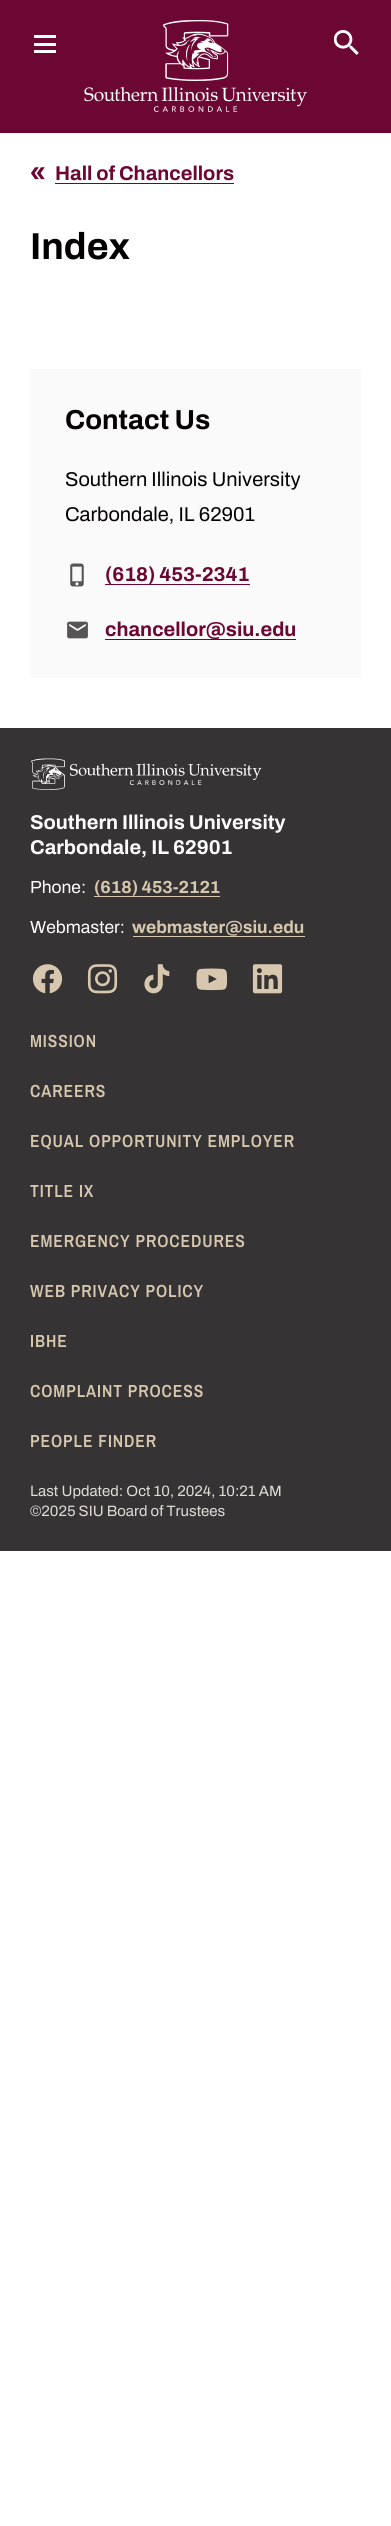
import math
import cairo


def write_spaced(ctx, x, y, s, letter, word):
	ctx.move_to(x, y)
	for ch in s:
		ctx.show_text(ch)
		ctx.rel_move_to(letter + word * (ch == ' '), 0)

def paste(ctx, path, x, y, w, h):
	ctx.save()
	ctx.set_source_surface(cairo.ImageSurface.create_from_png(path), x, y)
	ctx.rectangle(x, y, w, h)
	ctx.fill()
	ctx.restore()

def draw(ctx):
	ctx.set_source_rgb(1, 1, 1)
	ctx.paint()
	ctx.set_source_rgb(0.424, 0.024, 0.2)
	ctx.rectangle(0, 0, 391, 133)
	ctx.fill()
	ctx.set_source_rgb(1, 1, 1)
	ctx.rectangle(34, 35, 22, 3)
	ctx.rectangle(34, 43, 22, 3)
	ctx.rectangle(34, 50, 22, 3)
	ctx.fill()
	paste(ctx, 'media/1.png', 84, 20, 223, 92)
	paste(ctx, 'media/2.png', 334, 30, 25, 25)
	paste(ctx, 'media/3.png', 30, 167, 15, 13)
	ctx.select_font_face('Archivo', cairo.FONT_SLANT_NORMAL, cairo.FONT_WEIGHT_BOLD)
	ctx.set_font_size(20)
	ctx.set_source_rgb(0.424, 0.024, 0.2)
	ctx.move_to(55, 180)
	ctx.show_text('Hall of Chancellors')
	ctx.rectangle(55, 183, 179, 1)
	ctx.fill()
	ctx.set_font_size(37.5)
	ctx.set_source_rgb(0.012, 0, 0.004)
	ctx.move_to(30, 259)
	ctx.show_text('Index')
	ctx.set_source_rgb(0.98, 0.98, 0.98)
	ctx.rectangle(30, 369, 331, 309)
	ctx.fill()
	ctx.set_font_size(27.5)
	ctx.set_source_rgb(0.012, 0, 0.004)
	ctx.move_to(65, 429)
	ctx.show_text('Contact Us')
	ctx.select_font_face('Archivo')
	ctx.set_font_size(20)
	ctx.move_to(65, 486)
	ctx.show_text('Southern Illinois University')
	ctx.move_to(65, 521)
	ctx.show_text('Carbondale, IL 62901')
	paste(ctx, 'media/4.png', 70, 563, 14, 24)
	ctx.set_source_rgb(0.424, 0.024, 0.2)
	ctx.rectangle(105, 584, 145, 1)
	ctx.fill()
	ctx.select_font_face('Archivo', cairo.FONT_SLANT_NORMAL, cairo.FONT_WEIGHT_BOLD)
	ctx.move_to(105, 581)
	ctx.show_text('(618) 453-2341')
	paste(ctx, 'media/5.png', 67, 621, 21, 18)
	ctx.rectangle(105, 639, 191, 1)
	ctx.fill()
	ctx.move_to(105, 636)
	ctx.show_text('chancellor@siu.edu')
	ctx.set_source_rgb(0.208, 0.2, 0.204)
	ctx.rectangle(0, 728, 391, 823)
	ctx.fill()
	paste(ctx, 'media/6.png', 31, 758, 231, 32)
	ctx.set_source_rgb(1, 1, 1)
	ctx.move_to(30, 829)
	ctx.show_text('Southern Illinois University')
	ctx.move_to(30, 854)
	ctx.show_text('Carbondale, IL 62901')
	ctx.select_font_face('Archivo')
	ctx.set_font_size(17.5)
	ctx.move_to(30, 893)
	ctx.show_text('Phone:')
	ctx.select_font_face('Archivo', cairo.FONT_SLANT_NORMAL, cairo.FONT_WEIGHT_BOLD)
	ctx.set_source_rgb(0.843, 0.78, 0.682)
	ctx.move_to(94, 893)
	ctx.show_text('(618) 453-2121')
	ctx.rectangle(94, 896, 126, 1)
	ctx.fill()
	ctx.select_font_face('Archivo')
	ctx.set_source_rgb(1, 1, 1)
	ctx.move_to(30, 933)
	ctx.show_text('Webmaster:')
	ctx.select_font_face('Archivo', cairo.FONT_SLANT_NORMAL, cairo.FONT_WEIGHT_BOLD)
	ctx.set_source_rgb(0.843, 0.78, 0.682)
	ctx.move_to(132, 933)
	ctx.show_text('webmaster@siu.edu')
	ctx.rectangle(133, 936, 172, 1)
	ctx.fill()
	paste(ctx, 'media/7.png', 32, 964, 31, 30)
	paste(ctx, 'media/8.png', 87, 964, 31, 30)
	paste(ctx, 'media/9.png', 144, 964, 26, 30)
	paste(ctx, 'media/10.png', 196, 968, 32, 23)
	paste(ctx, 'media/11.png', 252, 964, 31, 30)
	ctx.select_font_face('Archivo Narrow SemiBold')
	for x, y, s in [
		(30, 1047, 'MISSION'),
		(30, 1097, 'CAREERS'),
		(30, 1147, 'EQUAL OPPORTUNITY EMPLOYER'),
		(30, 1197, 'TITLE IX'),
		(30, 1247, 'EMERGENCY PROCEDURES'),
		(30, 1297, 'WEB PRIVACY POLICY'),
		(30, 1347, 'IBHE'),
		(30, 1397, 'COMPLAINT PROCESS'),
		(30, 1447, 'PEOPLE FINDER'),
	]:
		write_spaced(ctx, x, y, s, 0.9, 0)
	ctx.select_font_face('Archivo')
	ctx.set_font_size(15)
	ctx.set_source_rgb(0.878, 0.867, 0.843)
	ctx.move_to(30, 1496)
	ctx.show_text('Last Updated: Oct 10, 2024, 10:21 AM')
	ctx.move_to(30, 1516)
	ctx.show_text('©2025 SIU Board of Trustees')


surface = cairo.ImageSurface(cairo.FORMAT_RGB24, 391, 2526)
ctx = cairo.Context(surface)
options = cairo.FontOptions()
options.set_hint_metrics(cairo.HINT_METRICS_OFF)
options.set_hint_style(cairo.HINT_STYLE_NONE)
ctx.set_font_options(options)
ctx.set_miter_limit(4)
draw(ctx)
surface.write_to_png('image.png')
